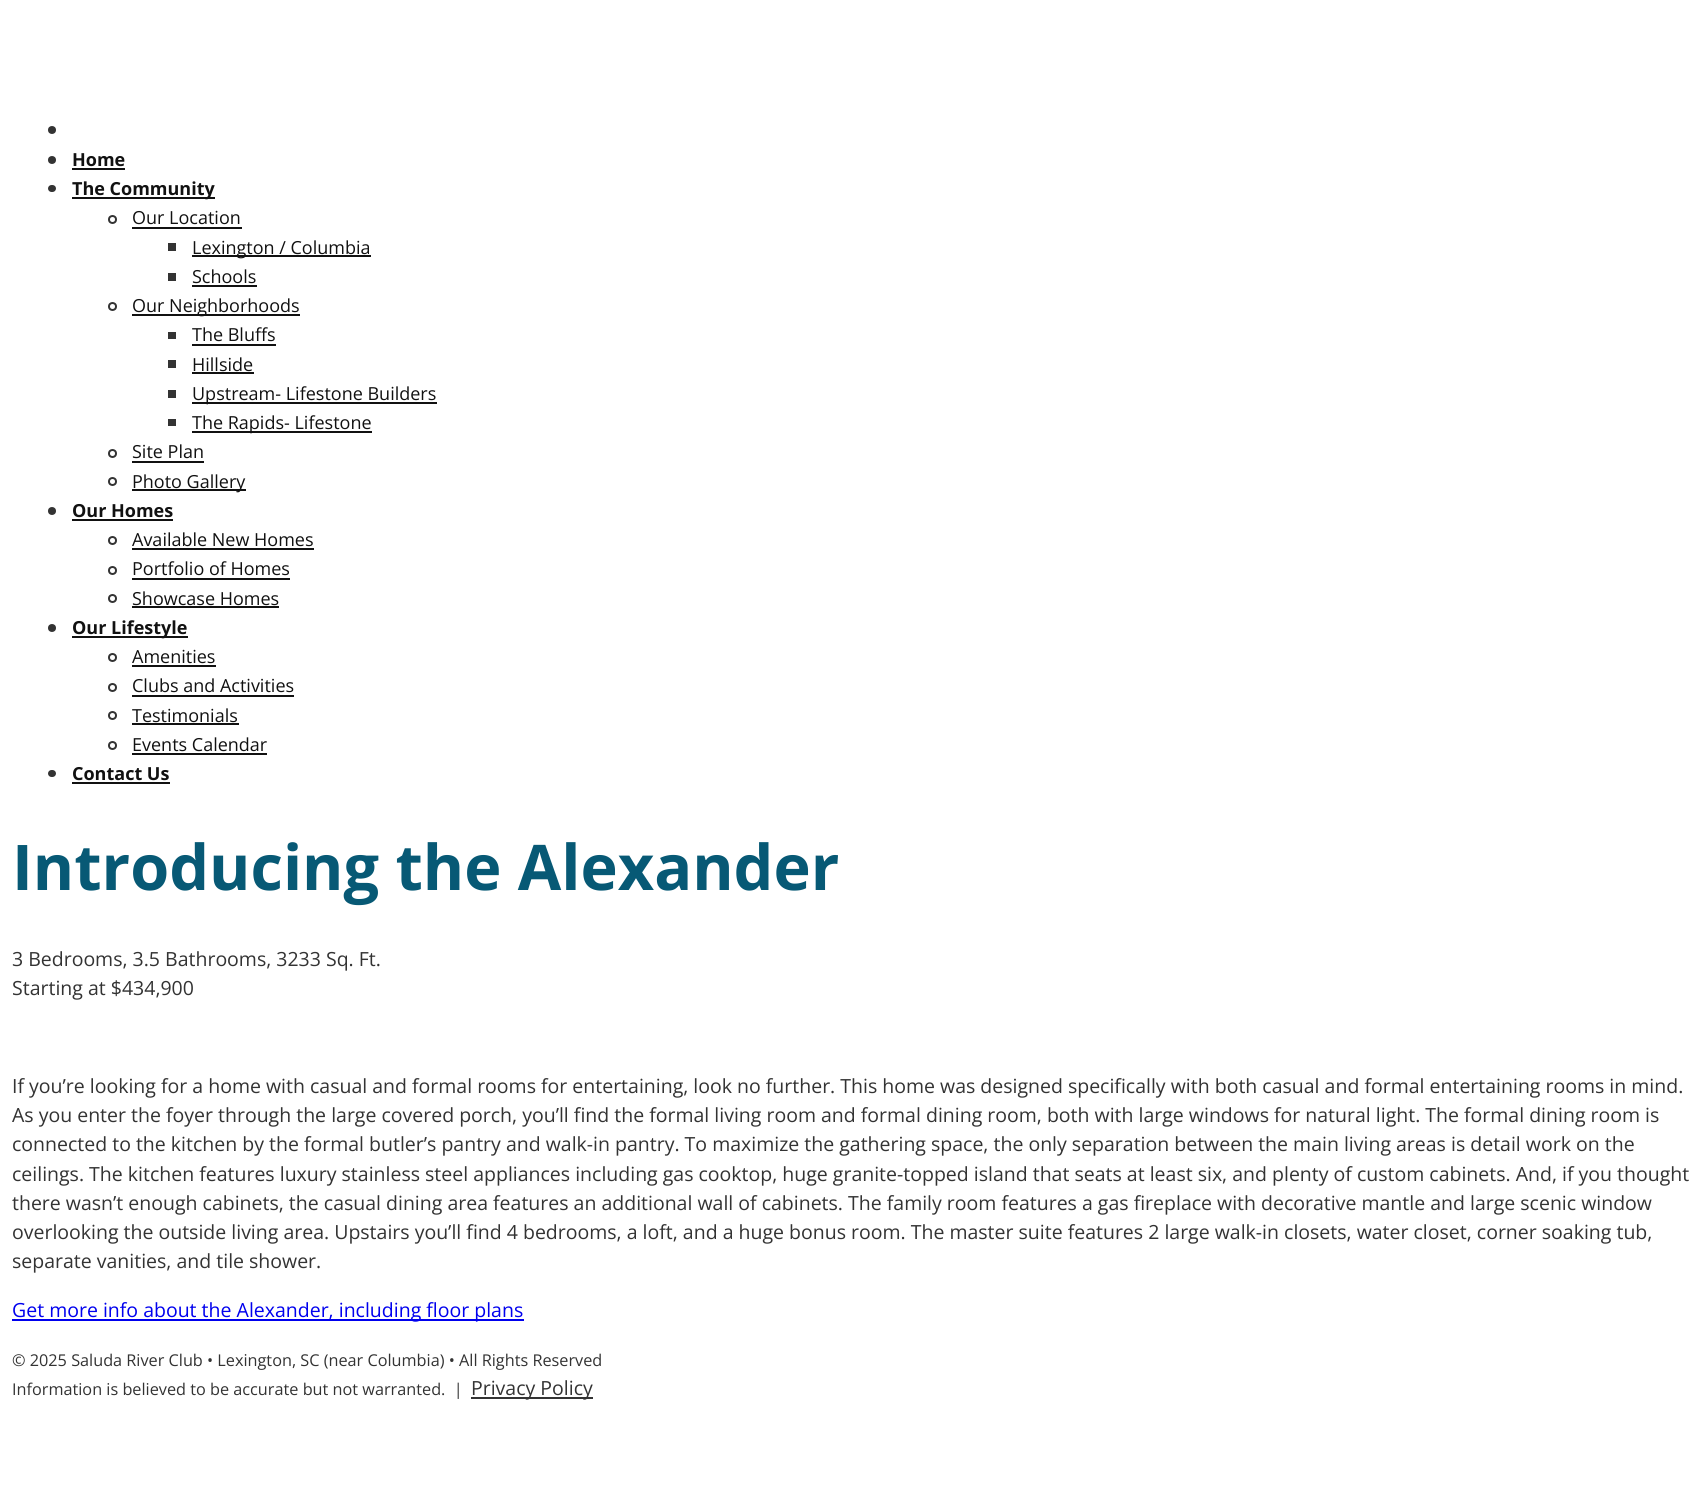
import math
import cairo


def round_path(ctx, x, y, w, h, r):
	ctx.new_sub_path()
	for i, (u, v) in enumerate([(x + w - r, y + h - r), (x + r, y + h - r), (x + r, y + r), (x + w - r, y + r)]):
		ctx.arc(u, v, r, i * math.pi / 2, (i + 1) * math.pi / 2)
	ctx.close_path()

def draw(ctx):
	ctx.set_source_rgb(1, 1, 1)
	ctx.paint()
	ctx.set_source_rgb(0.2, 0.2, 0.2)
	ctx.arc(52, 130, 4, 0, 2 * math.pi)
	ctx.fill()
	ctx.arc(52, 160, 4, 0, 2 * math.pi)
	ctx.fill()
	ctx.select_font_face('Open Sans', cairo.FONT_SLANT_NORMAL, cairo.FONT_WEIGHT_BOLD)
	ctx.set_font_size(18)
	ctx.set_source_rgb(0.067, 0.067, 0.067)
	ctx.move_to(72, 166)
	ctx.show_text('Home')
	ctx.rectangle(72, 168, 53, 2)
	ctx.fill()
	ctx.set_source_rgb(0.2, 0.2, 0.2)
	round_path(ctx, 48, 185, 8, 7, 3.5)
	ctx.fill()
	ctx.set_source_rgb(0.067, 0.067, 0.067)
	ctx.rectangle(72, 197, 143, 2)
	ctx.fill()
	ctx.move_to(72, 195)
	ctx.show_text('The Community')
	ctx.new_path()
	ctx.arc(112.5, 219.5, 3.5, 0, 2 * math.pi)
	ctx.set_source_rgb(0.2, 0.2, 0.2)
	ctx.stroke()
	ctx.select_font_face('Open Sans')
	ctx.set_source_rgb(0.067, 0.067, 0.067)
	ctx.move_to(132, 224)
	ctx.show_text('Our Location')
	ctx.rectangle(132, 227, 110, 2)
	ctx.fill()
	ctx.set_source_rgb(0.2, 0.2, 0.2)
	ctx.rectangle(168, 243, 8, 8)
	ctx.fill()
	ctx.set_source_rgb(0.067, 0.067, 0.067)
	ctx.rectangle(192, 255, 179, 2)
	ctx.fill()
	ctx.move_to(192, 254)
	ctx.show_text('Lexington / Columbia')
	ctx.set_source_rgb(0.2, 0.2, 0.2)
	ctx.rectangle(168, 273, 8, 8)
	ctx.fill()
	ctx.set_source_rgb(0.067, 0.067, 0.067)
	ctx.move_to(192, 283)
	ctx.show_text('Schools')
	ctx.rectangle(192, 285, 65, 2)
	ctx.fill()
	ctx.arc(112.5, 306.5, 3.5, 0, 2 * math.pi)
	ctx.set_source_rgb(0.2, 0.2, 0.2)
	ctx.stroke()
	ctx.set_source_rgb(0.067, 0.067, 0.067)
	ctx.rectangle(132, 314, 168, 2)
	ctx.fill()
	ctx.move_to(132, 312)
	ctx.show_text('Our Neighborhoods')
	ctx.set_source_rgb(0.2, 0.2, 0.2)
	ctx.rectangle(168, 332, 8, 7)
	ctx.fill()
	ctx.set_source_rgb(0.067, 0.067, 0.067)
	ctx.move_to(192, 341)
	ctx.show_text('The Bluffs')
	ctx.rectangle(192, 344, 84, 2)
	ctx.fill()
	ctx.set_source_rgb(0.2, 0.2, 0.2)
	ctx.rectangle(168, 360, 8, 8)
	ctx.fill()
	ctx.set_source_rgb(0.067, 0.067, 0.067)
	ctx.move_to(192, 371)
	ctx.show_text('Hillside')
	ctx.rectangle(192, 372, 62, 2)
	ctx.fill()
	ctx.set_source_rgb(0.2, 0.2, 0.2)
	ctx.rectangle(168, 390, 8, 8)
	ctx.fill()
	ctx.set_source_rgb(0.067, 0.067, 0.067)
	ctx.rectangle(192, 402, 245, 2)
	ctx.fill()
	ctx.move_to(192, 400)
	ctx.show_text('Upstream- Lifestone Builders')
	ctx.set_source_rgb(0.2, 0.2, 0.2)
	ctx.rectangle(168, 419, 8, 7)
	ctx.fill()
	ctx.set_source_rgb(0.067, 0.067, 0.067)
	ctx.rectangle(192, 431, 180, 2)
	ctx.fill()
	ctx.move_to(192, 429)
	ctx.show_text('The Rapids- Lifestone')
	ctx.new_path()
	ctx.arc(112.5, 453.5, 3.5, 0, 2 * math.pi)
	ctx.set_source_rgb(0.2, 0.2, 0.2)
	ctx.stroke()
	ctx.set_source_rgb(0.067, 0.067, 0.067)
	ctx.move_to(132, 458)
	ctx.show_text('Site Plan')
	ctx.rectangle(132, 461, 72, 2)
	ctx.fill()
	ctx.arc(112.5, 481.5, 3.5, 0, 2 * math.pi)
	ctx.set_source_rgb(0.2, 0.2, 0.2)
	ctx.stroke()
	ctx.set_source_rgb(0.067, 0.067, 0.067)
	ctx.rectangle(132, 489, 114, 2)
	ctx.fill()
	ctx.move_to(132, 488)
	ctx.show_text('Photo Gallery')
	ctx.set_source_rgb(0.2, 0.2, 0.2)
	ctx.new_path()
	ctx.arc(52, 511, 4, 0, 2 * math.pi)
	ctx.fill()
	ctx.select_font_face('Open Sans', cairo.FONT_SLANT_NORMAL, cairo.FONT_WEIGHT_BOLD)
	ctx.set_source_rgb(0.067, 0.067, 0.067)
	ctx.move_to(72, 517)
	ctx.show_text('Our Homes')
	ctx.rectangle(72, 519, 101, 2)
	ctx.fill()
	ctx.arc(112.5, 540.5, 3.5, 0, 2 * math.pi)
	ctx.set_source_rgb(0.2, 0.2, 0.2)
	ctx.stroke()
	ctx.select_font_face('Open Sans')
	ctx.set_source_rgb(0.067, 0.067, 0.067)
	ctx.move_to(132, 546)
	ctx.show_text('Available New Homes')
	ctx.rectangle(132, 548, 182, 2)
	ctx.fill()
	ctx.arc(112.5, 570.5, 3.5, 0, 2 * math.pi)
	ctx.set_source_rgb(0.2, 0.2, 0.2)
	ctx.stroke()
	ctx.set_source_rgb(0.067, 0.067, 0.067)
	ctx.move_to(132, 575)
	ctx.show_text('Portfolio of Homes')
	ctx.rectangle(132, 578, 158, 2)
	ctx.fill()
	ctx.arc(112.5, 598.5, 3.5, 0, 2 * math.pi)
	ctx.set_source_rgb(0.2, 0.2, 0.2)
	ctx.stroke()
	ctx.set_source_rgb(0.067, 0.067, 0.067)
	ctx.move_to(132, 605)
	ctx.show_text('Showcase Homes')
	ctx.rectangle(132, 606, 147, 2)
	ctx.fill()
	ctx.set_source_rgb(0.2, 0.2, 0.2)
	ctx.arc(52, 628, 4, 0, 2 * math.pi)
	ctx.fill()
	ctx.set_source_rgb(0.067, 0.067, 0.067)
	ctx.rectangle(72, 636, 116, 2)
	ctx.fill()
	ctx.select_font_face('Open Sans', cairo.FONT_SLANT_NORMAL, cairo.FONT_WEIGHT_BOLD)
	ctx.move_to(72, 634)
	ctx.show_text('Our Lifestyle')
	ctx.new_path()
	ctx.arc(112.5, 657.5, 3.5, 0, 2 * math.pi)
	ctx.set_source_rgb(0.2, 0.2, 0.2)
	ctx.stroke()
	ctx.select_font_face('Open Sans')
	ctx.set_source_rgb(0.067, 0.067, 0.067)
	ctx.move_to(132, 663)
	ctx.show_text('Amenities')
	ctx.rectangle(132, 665, 84, 2)
	ctx.fill()
	ctx.arc(112.5, 687.5, 3.5, 0, 2 * math.pi)
	ctx.set_source_rgb(0.2, 0.2, 0.2)
	ctx.stroke()
	ctx.set_source_rgb(0.067, 0.067, 0.067)
	ctx.move_to(132, 692)
	ctx.show_text('Clubs and Activities')
	ctx.rectangle(132, 695, 162, 2)
	ctx.fill()
	ctx.arc(112.5, 715.5, 3.5, 0, 2 * math.pi)
	ctx.set_source_rgb(0.2, 0.2, 0.2)
	ctx.stroke()
	ctx.set_source_rgb(0.067, 0.067, 0.067)
	ctx.move_to(132, 722)
	ctx.show_text('Testimonials')
	ctx.rectangle(132, 723, 107, 2)
	ctx.fill()
	ctx.arc(112.5, 745.5, 3.5, 0, 2 * math.pi)
	ctx.set_source_rgb(0.2, 0.2, 0.2)
	ctx.stroke()
	ctx.set_source_rgb(0.067, 0.067, 0.067)
	ctx.move_to(132, 751)
	ctx.show_text('Events Calendar')
	ctx.rectangle(132, 753, 135, 2)
	ctx.fill()
	ctx.set_source_rgb(0.2, 0.2, 0.2)
	round_path(ctx, 48, 770, 8, 7, 3.5)
	ctx.fill()
	ctx.select_font_face('Open Sans', cairo.FONT_SLANT_NORMAL, cairo.FONT_WEIGHT_BOLD)
	ctx.set_source_rgb(0.067, 0.067, 0.067)
	ctx.move_to(72, 780)
	ctx.show_text('Contact Us')
	ctx.rectangle(72, 782, 98, 2)
	ctx.fill()
	ctx.set_font_size(63)
	ctx.set_source_rgb(0.031, 0.349, 0.459)
	ctx.move_to(12, 890)
	ctx.show_text('Introducing the Alexander')
	ctx.select_font_face('Open Sans')
	ctx.set_font_size(19.5)
	ctx.set_source_rgb(0.2, 0.2, 0.2)
	for x, y, s in [
		(12, 966, '3 Bedrooms, 3.5 Bathrooms, 3233 Sq. Ft.'),
		(12, 995, 'Starting at $434,900'),
		(12, 1093, 'If you’re looking for a home with casual and formal rooms for entertaining, look no further. This home was designed specifically with both casual and formal entertaining rooms in mind.'),
		(12, 1122, 'As you enter the foyer through the large covered porch, you’ll find the formal living room and formal dining room, both with large windows for natural light. The formal dining room is'),
		(12, 1151, 'connected to the kitchen by the formal butler’s pantry and walk-in pantry. To maximize the gathering space, the only separation between the main living areas is detail work on the'),
		(12, 1181, 'ceilings. The kitchen features luxury stainless steel appliances including gas cooktop, huge granite-topped island that seats at least six, and plenty of custom cabinets. And, if you thought'),
		(12, 1210, 'there wasn’t enough cabinets, the casual dining area features an additional wall of cabinets. The family room features a gas fireplace with decorative mantle and large scenic window'),
		(12, 1239, 'overlooking the outside living area. Upstairs you’ll find 4 bedrooms, a loft, and a huge bonus room. The master suite features 2 large walk-in closets, water closet, corner soaking tub,'),
		(12, 1268, 'separate vanities, and tile shower.'),
	]:
		ctx.move_to(x, y)
		ctx.show_text(s)
	ctx.set_source_rgb(0, 0, 0.933)
	ctx.rectangle(12, 1319, 512, 2)
	ctx.fill()
	ctx.move_to(12, 1317)
	ctx.show_text('Get more info about the Alexander, including floor plans')
	ctx.set_font_size(16.25)
	ctx.set_source_rgb(0.2, 0.2, 0.2)
	ctx.move_to(12, 1366)
	ctx.show_text('© 2025 Saluda River Club • Lexington, SC (near Columbia) • All Rights Reserved')
	ctx.move_to(12, 1395)
	ctx.show_text('Information is believed to be accurate but not warranted.  |')
	ctx.rectangle(471, 1397, 122, 2)
	ctx.fill()
	ctx.set_font_size(19.5)
	ctx.move_to(471, 1395)
	ctx.show_text('Privacy Policy')


surface = cairo.ImageSurface(cairo.FORMAT_RGB24, 1708, 1501)
ctx = cairo.Context(surface)
options = cairo.FontOptions()
options.set_hint_metrics(cairo.HINT_METRICS_OFF)
options.set_hint_style(cairo.HINT_STYLE_NONE)
ctx.set_font_options(options)
ctx.set_miter_limit(4)
draw(ctx)
surface.write_to_png('image.png')
